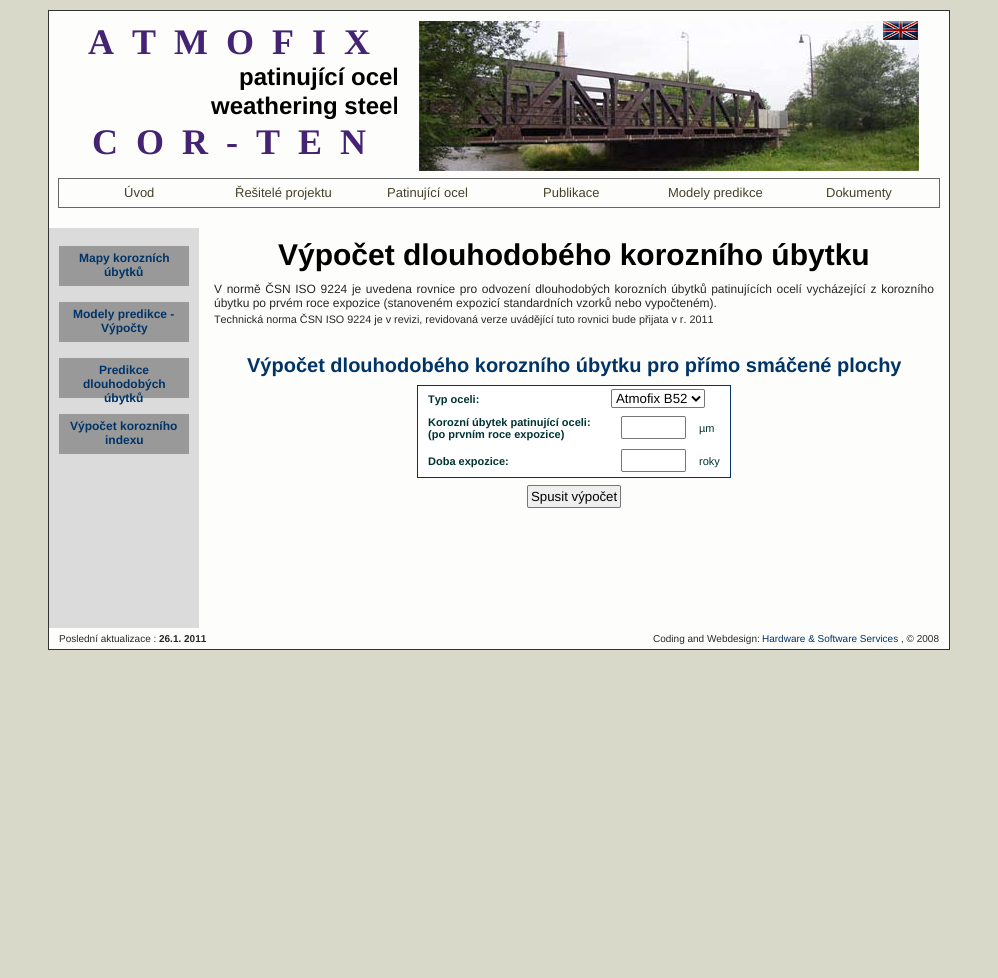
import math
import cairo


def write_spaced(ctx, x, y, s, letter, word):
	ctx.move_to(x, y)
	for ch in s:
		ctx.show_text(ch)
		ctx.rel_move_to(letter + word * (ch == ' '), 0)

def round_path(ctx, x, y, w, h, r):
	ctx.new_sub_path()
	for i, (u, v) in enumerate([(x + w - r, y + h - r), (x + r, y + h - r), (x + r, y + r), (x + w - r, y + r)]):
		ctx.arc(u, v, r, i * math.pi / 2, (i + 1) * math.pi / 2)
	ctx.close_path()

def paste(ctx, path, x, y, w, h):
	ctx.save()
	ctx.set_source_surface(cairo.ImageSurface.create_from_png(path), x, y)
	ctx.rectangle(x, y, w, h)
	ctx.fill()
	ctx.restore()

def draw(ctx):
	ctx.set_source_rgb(0.851, 0.851, 0.788)
	ctx.paint()
	ctx.set_source_rgb(0.992, 0.992, 0.988)
	ctx.rectangle(48.5, 10.5, 901, 639)
	ctx.fill_preserve()
	ctx.set_source_rgb(0.2, 0.2, 0.2)
	ctx.set_line_width(1)
	ctx.stroke()
	paste(ctx, 'media/1.png', 419, 21, 500, 150)
	ctx.select_font_face('Liberation Serif', cairo.FONT_SLANT_NORMAL, cairo.FONT_WEIGHT_BOLD)
	ctx.set_font_size(36)
	ctx.set_source_rgb(0.267, 0.137, 0.447)
	ctx.move_to(88, 54)
	ctx.show_text('A  T  M  O  F  I  X')
	ctx.select_font_face('Liberation Sans', cairo.FONT_SLANT_NORMAL, cairo.FONT_WEIGHT_BOLD)
	ctx.set_font_size(24)
	ctx.set_source_rgb(0, 0, 0)
	ctx.move_to(239, 85)
	ctx.show_text('patinující ocel')
	ctx.move_to(211, 114)
	ctx.show_text('weathering steel')
	ctx.select_font_face('Liberation Serif', cairo.FONT_SLANT_NORMAL, cairo.FONT_WEIGHT_BOLD)
	ctx.set_font_size(36)
	ctx.set_source_rgb(0.267, 0.137, 0.447)
	ctx.move_to(92, 154)
	ctx.show_text('C  O  R  -  T  E  N')
	paste(ctx, 'media/2.png', 883, 21, 35, 19)
	ctx.rectangle(58.5, 178.5, 881, 29)
	ctx.set_source_rgb(0.4, 0.4, 0.4)
	ctx.stroke()
	ctx.select_font_face('Liberation Sans')
	ctx.set_font_size(13)
	ctx.set_source_rgb(0.267, 0.251, 0.157)
	for x, y, s in [
		(124, 197, 'Úvod'),
		(235, 197, 'Řešitelé projektu'),
		(387, 197, 'Patinující ocel'),
		(543, 197, 'Publikace'),
		(668, 197, 'Modely predikce'),
		(826, 197, 'Dokumenty'),
	]:
		ctx.move_to(x, y)
		ctx.show_text(s)
	ctx.set_source_rgb(0.859, 0.859, 0.859)
	ctx.rectangle(49, 228, 150, 400)
	ctx.fill()
	ctx.set_source_rgb(0.6, 0.6, 0.6)
	ctx.rectangle(59, 246, 130, 40)
	ctx.fill()
	ctx.select_font_face('Liberation Sans', cairo.FONT_SLANT_NORMAL, cairo.FONT_WEIGHT_BOLD)
	ctx.set_font_size(12)
	ctx.set_source_rgb(0, 0.2, 0.4)
	ctx.move_to(79, 262)
	ctx.show_text('Mapy korozních')
	ctx.move_to(104, 276)
	ctx.show_text('úbytků')
	ctx.set_source_rgb(0.6, 0.6, 0.6)
	ctx.rectangle(59, 302, 130, 40)
	ctx.fill()
	ctx.set_source_rgb(0, 0.2, 0.4)
	ctx.move_to(73, 318)
	ctx.show_text('Modely predikce -')
	ctx.move_to(101, 332)
	ctx.show_text('Výpočty')
	ctx.set_source_rgb(0.6, 0.6, 0.6)
	ctx.rectangle(59, 358, 130, 40)
	ctx.fill()
	ctx.set_source_rgb(0, 0.2, 0.4)
	for x, y, s in [
		(99, 374, 'Predikce'),
		(83, 388, 'dlouhodobých'),
		(104, 402, 'úbytků'),
	]:
		ctx.move_to(x, y)
		ctx.show_text(s)
	ctx.set_source_rgb(0.6, 0.6, 0.6)
	ctx.rectangle(59, 414, 130, 40)
	ctx.fill()
	ctx.set_source_rgb(0, 0.2, 0.4)
	ctx.move_to(70, 430)
	ctx.show_text('Výpočet korozního')
	ctx.move_to(105, 444)
	ctx.show_text('indexu')
	ctx.set_font_size(30)
	ctx.set_source_rgb(0, 0, 0)
	ctx.move_to(278, 265)
	ctx.show_text('Výpočet dlouhodobého korozního úbytku')
	ctx.select_font_face('Liberation Sans')
	ctx.set_font_size(12)
	ctx.set_source_rgb(0.153, 0.153, 0.153)
	write_spaced(ctx, 214, 293, 'V normě ČSN ISO 9224 je uvedena rovnice pro odvození dlouhodobých korozních úbytků patinujících ocelí vycházející z korozního', 0, 1.3)
	ctx.move_to(214, 307)
	ctx.show_text('úbytku po prvém roce expozice (stanoveném expozicí standardních vzorků nebo vypočteném).')
	ctx.set_font_size(10.8)
	ctx.move_to(214, 323)
	ctx.show_text('Technická norma ČSN ISO 9224 je v revizi, revidovaná verze uvádějící tuto rovnici bude přijata v r. 2011')
	ctx.select_font_face('Liberation Sans', cairo.FONT_SLANT_NORMAL, cairo.FONT_WEIGHT_BOLD)
	ctx.set_font_size(20)
	ctx.set_source_rgb(0, 0.2, 0.4)
	ctx.move_to(247, 372)
	ctx.show_text('Výpočet dlouhodobého korozního úbytku pro přímo smáčené plochy')
	ctx.rectangle(417, 385, 314, 1)
	ctx.rectangle(730, 385, 1, 93)
	ctx.rectangle(417, 477, 314, 1)
	ctx.rectangle(417, 385, 1, 93)
	ctx.fill()
	ctx.set_source_rgb(1, 1, 1)
	ctx.rectangle(418, 386, 312, 25)
	ctx.fill()
	ctx.set_font_size(11)
	ctx.set_source_rgb(0, 0.2, 0.2)
	ctx.move_to(428, 403)
	ctx.show_text('Typ oceli:')
	round_path(ctx, 611.5, 389.5, 93, 18, 1.5)
	ctx.set_source_rgb(0.463, 0.463, 0.463)
	ctx.stroke()
	ctx.new_path()
	ctx.move_to(692, 396.5)
	ctx.line_to(696, 400.5)
	ctx.line_to(700, 396.5)
	ctx.set_source_rgb(0, 0, 0)
	ctx.set_line_width(2)
	ctx.stroke()
	ctx.select_font_face('Liberation Sans')
	ctx.set_font_size(13.25)
	ctx.move_to(616, 403)
	ctx.show_text('Atmofix B52')
	ctx.set_source_rgb(1, 1, 1)
	ctx.rectangle(418, 411, 312, 33)
	ctx.fill()
	ctx.select_font_face('Liberation Sans', cairo.FONT_SLANT_NORMAL, cairo.FONT_WEIGHT_BOLD)
	ctx.set_font_size(11)
	ctx.set_source_rgb(0, 0.2, 0.2)
	ctx.move_to(428, 426)
	ctx.show_text('Korozní úbytek patinující oceli:')
	ctx.move_to(428, 438)
	ctx.show_text('(po prvním roce expozice)')
	round_path(ctx, 621.5, 416.5, 64, 22, 1.5)
	ctx.set_source_rgb(0.463, 0.463, 0.463)
	ctx.set_line_width(1)
	ctx.stroke()
	ctx.select_font_face('Liberation Sans')
	ctx.set_source_rgb(0, 0.2, 0.2)
	ctx.move_to(699, 432)
	ctx.show_text('µm')
	ctx.set_source_rgb(1, 1, 1)
	ctx.rectangle(418, 444, 312, 33)
	ctx.fill()
	ctx.select_font_face('Liberation Sans', cairo.FONT_SLANT_NORMAL, cairo.FONT_WEIGHT_BOLD)
	ctx.set_source_rgb(0, 0.2, 0.2)
	ctx.move_to(428, 465)
	ctx.show_text('Doba expozice:')
	round_path(ctx, 621.5, 449.5, 64, 22, 1.5)
	ctx.set_source_rgb(0.463, 0.463, 0.463)
	ctx.stroke()
	ctx.select_font_face('Liberation Sans')
	ctx.set_source_rgb(0, 0.2, 0.2)
	ctx.move_to(699, 465)
	ctx.show_text('roky')
	ctx.set_source_rgb(0.937, 0.937, 0.937)
	round_path(ctx, 527.5, 485.5, 93, 22, 1.5)
	ctx.fill_preserve()
	ctx.set_source_rgb(0.463, 0.463, 0.463)
	ctx.stroke()
	ctx.set_font_size(13.25)
	ctx.set_source_rgb(0, 0, 0)
	ctx.move_to(531, 501)
	ctx.show_text('Spusit výpočet')
	ctx.set_font_size(10)
	ctx.set_source_rgb(0.153, 0.153, 0.153)
	ctx.move_to(59, 642)
	ctx.show_text('Poslední aktualizace :')
	ctx.select_font_face('Liberation Sans', cairo.FONT_SLANT_NORMAL, cairo.FONT_WEIGHT_BOLD)
	ctx.move_to(159, 642)
	ctx.show_text('26.1. 2011')
	ctx.select_font_face('Liberation Sans')
	ctx.move_to(653, 642)
	ctx.show_text('Coding and Webdesign:')
	ctx.set_source_rgb(0, 0.2, 0.4)
	ctx.move_to(762, 642)
	ctx.show_text('Hardware & Software Services')
	ctx.set_source_rgb(0.153, 0.153, 0.153)
	ctx.move_to(901, 642)
	ctx.show_text(', © 2008')


surface = cairo.ImageSurface(cairo.FORMAT_RGB24, 998, 978)
ctx = cairo.Context(surface)
options = cairo.FontOptions()
options.set_hint_metrics(cairo.HINT_METRICS_OFF)
options.set_hint_style(cairo.HINT_STYLE_NONE)
ctx.set_font_options(options)
ctx.set_miter_limit(4)
draw(ctx)
surface.write_to_png('image.png')
